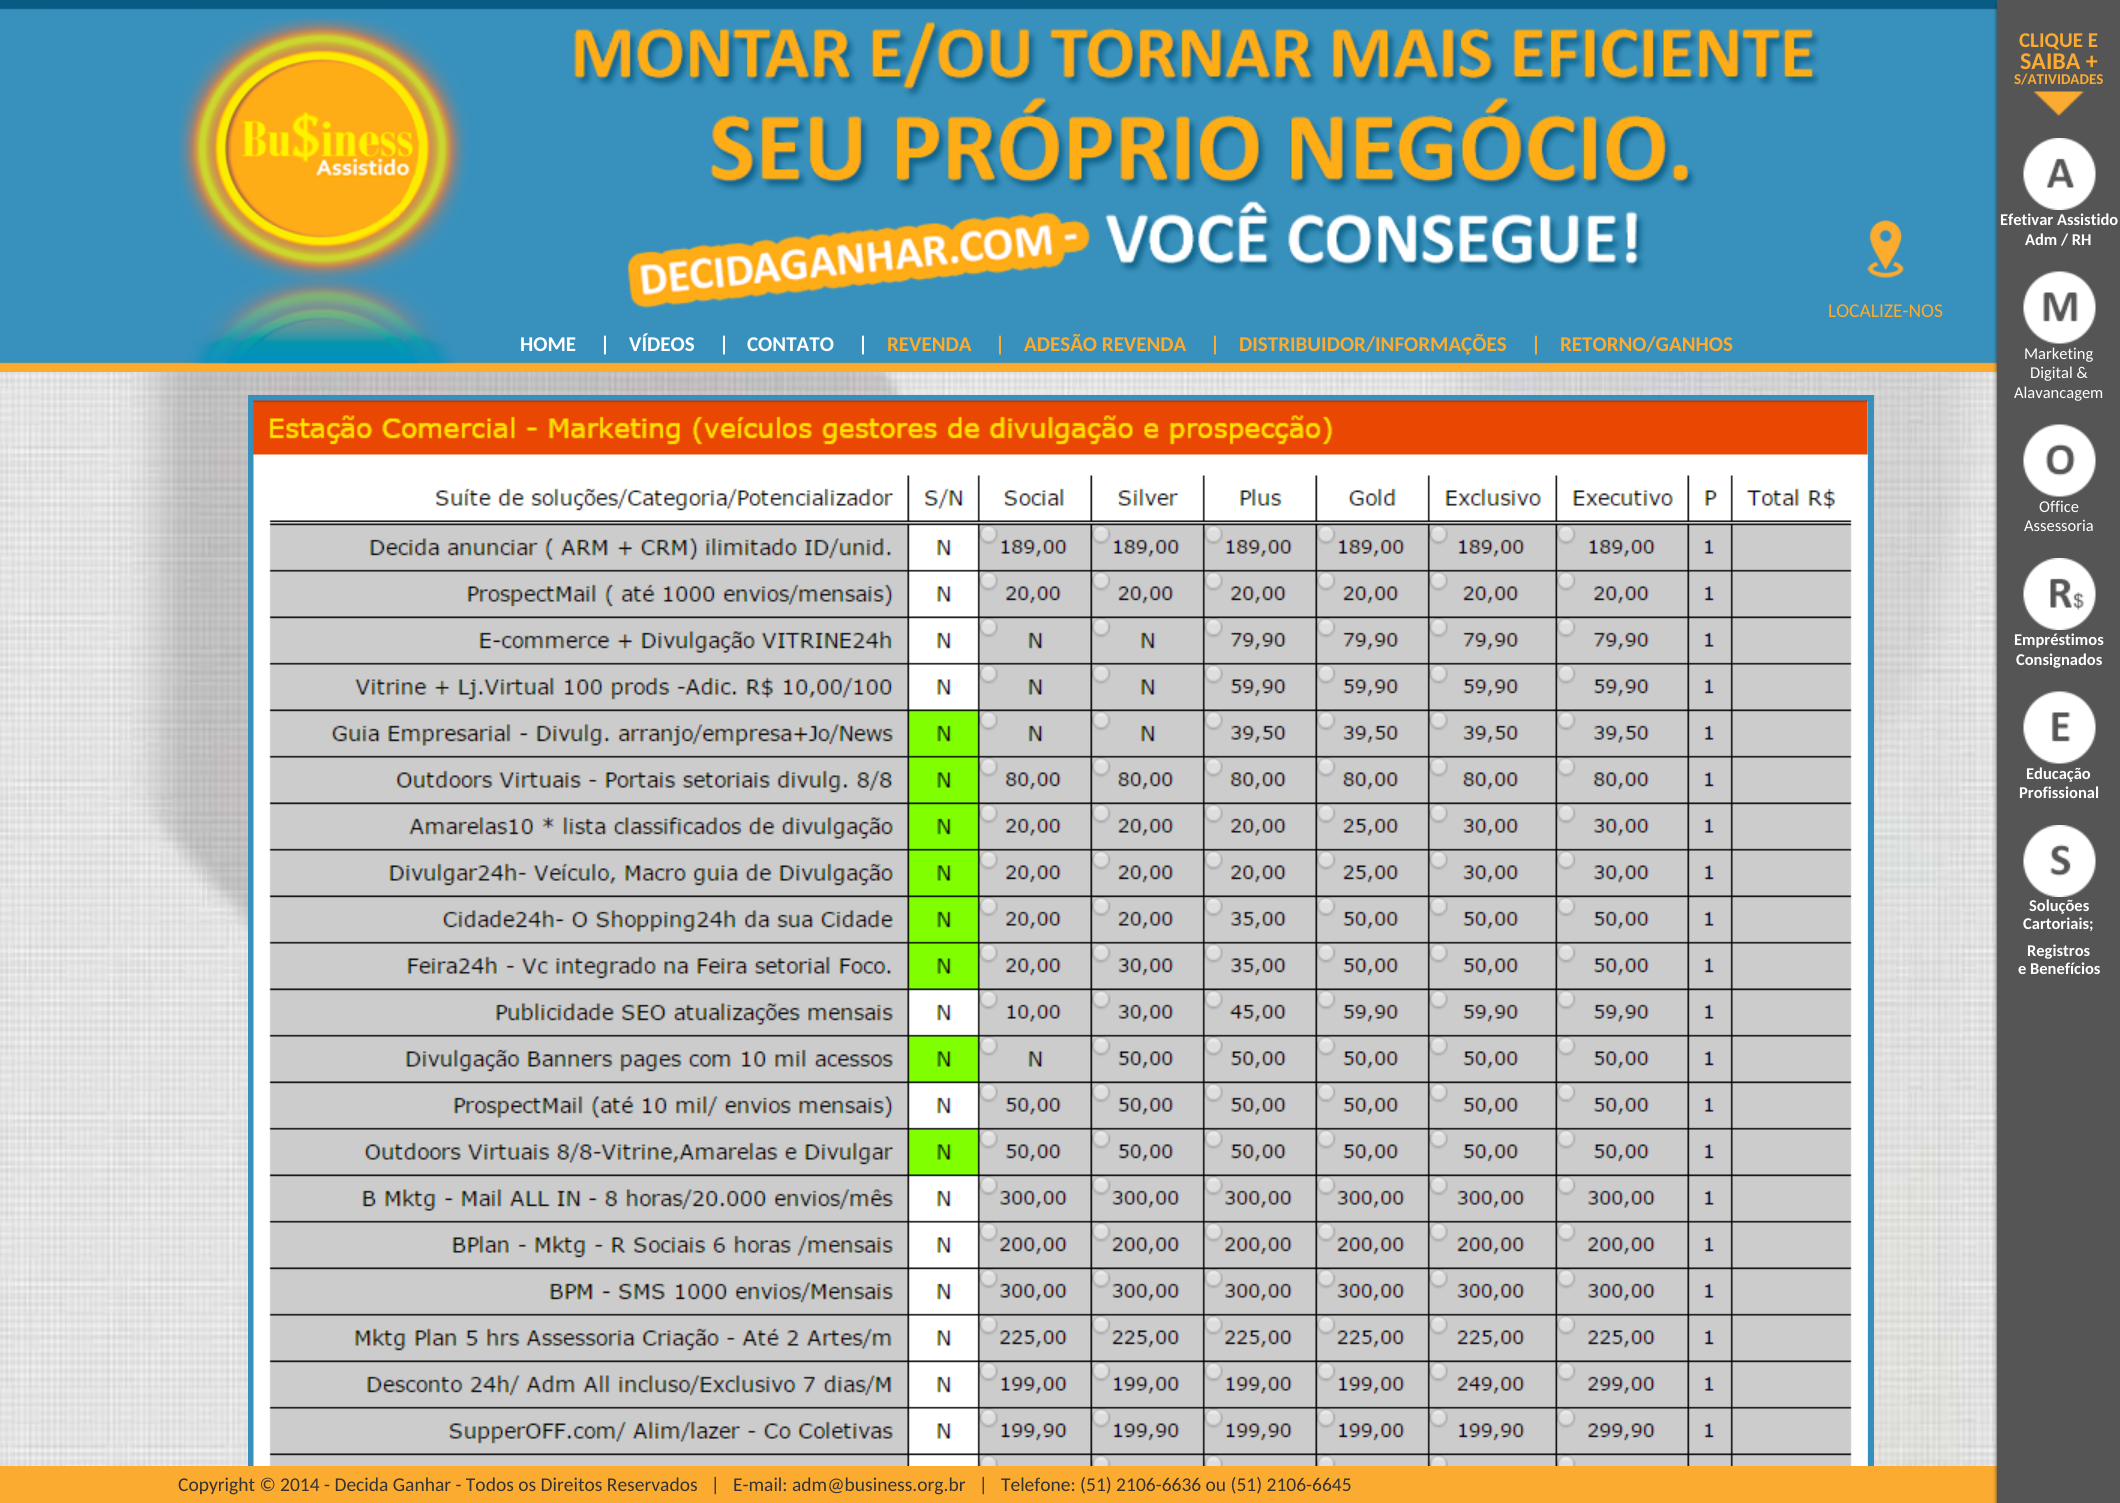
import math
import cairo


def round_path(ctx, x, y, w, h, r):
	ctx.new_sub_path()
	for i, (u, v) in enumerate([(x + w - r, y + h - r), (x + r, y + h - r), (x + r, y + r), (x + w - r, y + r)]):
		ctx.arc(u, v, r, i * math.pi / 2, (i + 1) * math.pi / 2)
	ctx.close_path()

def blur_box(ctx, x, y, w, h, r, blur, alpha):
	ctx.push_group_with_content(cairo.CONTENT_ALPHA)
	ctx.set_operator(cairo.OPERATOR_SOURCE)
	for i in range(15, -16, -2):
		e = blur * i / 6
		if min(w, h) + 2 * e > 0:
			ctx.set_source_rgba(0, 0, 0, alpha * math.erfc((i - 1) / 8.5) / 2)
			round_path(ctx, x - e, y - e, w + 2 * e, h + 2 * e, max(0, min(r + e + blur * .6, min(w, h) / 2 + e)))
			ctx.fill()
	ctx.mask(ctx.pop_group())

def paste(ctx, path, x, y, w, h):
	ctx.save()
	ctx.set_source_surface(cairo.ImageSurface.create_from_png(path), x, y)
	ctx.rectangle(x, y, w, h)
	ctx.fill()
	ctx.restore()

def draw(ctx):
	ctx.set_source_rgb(1, 1, 1)
	ctx.paint()
	paste(ctx, 'media/1.png', 0, 0, 1997, 372)
	paste(ctx, 'media/2.png', 178, 17, 1642, 347)
	paste(ctx, 'media/3.png', 1867, 220, 37, 58)
	ctx.select_font_face('Carlito')
	ctx.set_font_size(19.5)
	ctx.set_source_rgb(0.98, 0.671, 0.188)
	ctx.move_to(1828, 317)
	ctx.show_text('LOCALIZE-NOS')
	ctx.select_font_face('Carlito', cairo.FONT_SLANT_NORMAL, cairo.FONT_WEIGHT_BOLD)
	ctx.set_font_size(21)
	ctx.set_source_rgb(1, 1, 1)
	for x, y, s in [
		(520, 351, 'HOME'),
		(600, 351, '|'),
		(629, 351, 'VÍDEOS'),
		(719, 351, '|'),
		(747, 351, 'CONTATO'),
		(858, 351, '|'),
	]:
		ctx.move_to(x, y)
		ctx.show_text(s)
	ctx.set_source_rgb(0.98, 0.671, 0.188)
	for x, y, s in [
		(887, 351, 'REVENDA'),
		(995, 351, '|'),
		(1024, 351, 'ADESÃO REVENDA'),
		(1210, 351, '|'),
		(1239, 351, 'DISTRIBUIDOR/INFORMAÇÕES'),
		(1531, 351, '|'),
		(1560, 351, 'RETORNO/GANHOS'),
	]:
		ctx.move_to(x, y)
		ctx.show_text(s)
	paste(ctx, 'media/11.png', 0, 372, 1997, 1094)
	ctx.rectangle(251, 398, 1620, 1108)
	ctx.set_source_rgb(0.216, 0.565, 0.737)
	ctx.set_line_width(6)
	ctx.stroke()
	ctx.set_source_rgb(0.984, 0.671, 0.188)
	ctx.rectangle(0, 1466, 1997, 37)
	ctx.fill()
	ctx.set_source_rgb(0.2, 0.2, 0.2)
	blur_box(ctx, 1997, 5, 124, 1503, 0, 2, 1)
	ctx.set_source_rgb(0.333, 0.333, 0.333)
	ctx.rectangle(1997, 0, 123, 1503)
	ctx.fill()
	ctx.set_source_rgb(0.98, 0.671, 0.188)
	ctx.move_to(2019, 47)
	ctx.show_text('CLIQUE E')
	ctx.set_font_size(24)
	ctx.move_to(2020, 69)
	ctx.show_text('SAIBA +')
	ctx.set_font_size(15)
	ctx.move_to(2014, 84)
	ctx.show_text('S/ATIVIDADES')
	paste(ctx, 'media/4.png', 2034, 91, 50, 25)
	paste(ctx, 'media/5.png', 2023, 138, 73, 72)
	ctx.set_font_size(16.5)
	ctx.set_source_rgb(1, 1, 1)
	ctx.move_to(2000, 225)
	ctx.show_text('Efetivar Assistido')
	ctx.move_to(2025, 245)
	ctx.show_text('Adm / RH')
	paste(ctx, 'media/6.png', 2023, 271, 73, 73)
	ctx.select_font_face('Carlito')
	for x, y, s in [
		(2024, 359, 'Marketing'),
		(2030, 378, 'Digital &'),
		(2014, 398, 'Alavancagem'),
	]:
		ctx.move_to(x, y)
		ctx.show_text(s)
	paste(ctx, 'media/7.png', 2023, 424, 73, 73)
	ctx.move_to(2039, 512)
	ctx.show_text('Office')
	ctx.move_to(2024, 531)
	ctx.show_text('Assessoria')
	paste(ctx, 'media/8.png', 2023, 558, 73, 72)
	ctx.select_font_face('Carlito', cairo.FONT_SLANT_NORMAL, cairo.FONT_WEIGHT_BOLD)
	ctx.move_to(2014, 645)
	ctx.show_text('Empréstimos')
	ctx.move_to(2016, 665)
	ctx.show_text('Consignados')
	paste(ctx, 'media/9.png', 2023, 691, 73, 73)
	ctx.move_to(2026, 779)
	ctx.show_text('Educação')
	ctx.move_to(2019, 798)
	ctx.show_text('Profissional')
	paste(ctx, 'media/10.png', 2023, 825, 73, 72)
	for x, y, s in [
		(2029, 911, 'Soluções'),
		(2023, 929, 'Cartoriais;'),
		(2027, 956, 'Registros'),
		(2018, 974, 'e Benefícios'),
	]:
		ctx.move_to(x, y)
		ctx.show_text(s)
	paste(ctx, 'media/12.png', 253, 400, 1615, 1066)
	ctx.select_font_face('Carlito')
	ctx.set_font_size(19.5)
	ctx.set_source_rgb(0.2, 0.2, 0.2)
	ctx.move_to(178, 1491)
	ctx.show_text('Copyright © 2014 - Decida Ganhar - Todos os Direitos Reservados   |   E-mail: adm@business.org.br   |   Telefone: (51) 2106-6636 ou (51) 2106-6645')


surface = cairo.ImageSurface(cairo.FORMAT_RGB24, 2120, 1503)
ctx = cairo.Context(surface)
options = cairo.FontOptions()
options.set_hint_metrics(cairo.HINT_METRICS_OFF)
options.set_hint_style(cairo.HINT_STYLE_NONE)
ctx.set_font_options(options)
ctx.set_miter_limit(4)
draw(ctx)
surface.write_to_png('image.png')
